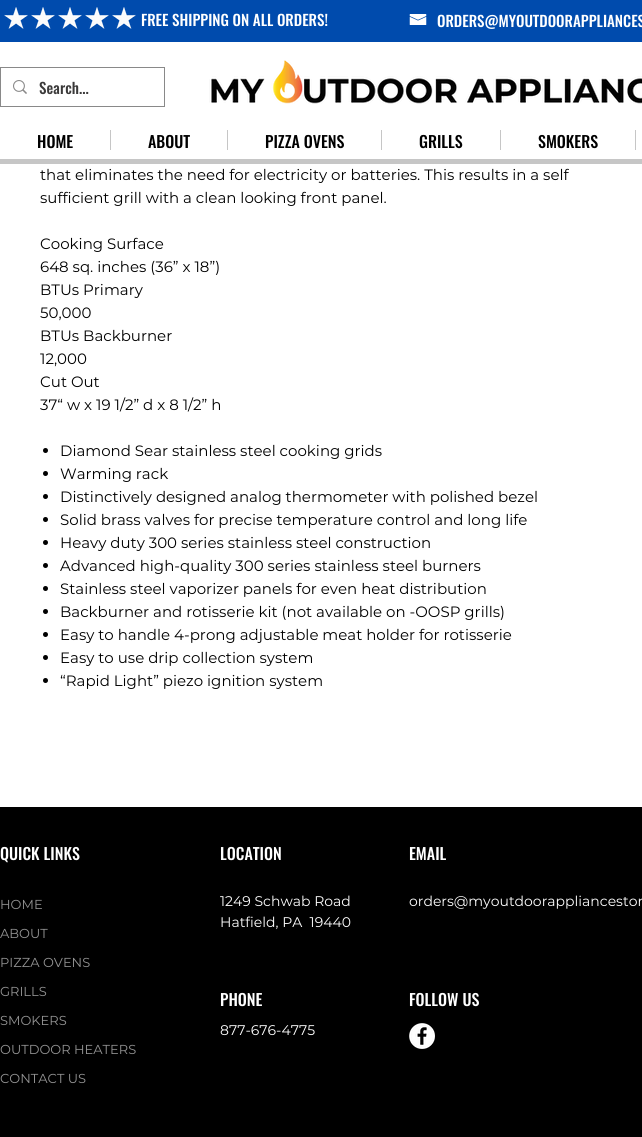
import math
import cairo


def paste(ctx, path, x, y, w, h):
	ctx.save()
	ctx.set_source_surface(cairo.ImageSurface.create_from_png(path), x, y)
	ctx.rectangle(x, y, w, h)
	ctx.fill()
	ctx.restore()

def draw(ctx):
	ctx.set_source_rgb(1, 1, 1)
	ctx.paint()
	ctx.set_source_rgb(0, 0.294, 0.678)
	ctx.rectangle(0, 0, 642, 42)
	ctx.fill()
	paste(ctx, 'media/1.png', 4, 7, 132, 22)
	ctx.select_font_face('Oswald Medium')
	ctx.set_font_size(15)
	ctx.set_source_rgb(1, 1, 1)
	ctx.move_to(141, 26)
	ctx.show_text('FREE SHIPPING ON ALL ORDERS!')
	paste(ctx, 'media/2.png', 409, 14, 18, 11)
	ctx.move_to(437, 27)
	ctx.show_text('ORDERS@MYOUTDOORAPPLIANCES')
	ctx.rectangle(0.5, 67.5, 164, 39)
	ctx.set_source_rgb(0.537, 0.537, 0.537)
	ctx.set_line_width(1)
	ctx.stroke()
	paste(ctx, 'media/3.png', 13, 80, 14, 14)
	ctx.set_source_rgb(0.231, 0.227, 0.227)
	ctx.move_to(39, 94)
	ctx.show_text('Search...')
	paste(ctx, 'media/4.png', 209, 60, 433, 44)
	ctx.set_font_size(16)
	ctx.set_source_rgb(0, 0, 0)
	ctx.move_to(37, 148)
	ctx.show_text('HOME')
	ctx.set_source_rgb(0.776, 0.776, 0.776)
	ctx.rectangle(110, 130, 1, 20)
	ctx.fill()
	ctx.set_source_rgb(0, 0, 0)
	ctx.move_to(148, 148)
	ctx.show_text('ABOUT')
	ctx.set_source_rgb(0.776, 0.776, 0.776)
	ctx.rectangle(227, 130, 1, 20)
	ctx.fill()
	ctx.set_source_rgb(0, 0, 0)
	ctx.move_to(265, 148)
	ctx.show_text('PIZZA OVENS')
	ctx.set_source_rgb(0.776, 0.776, 0.776)
	ctx.rectangle(381, 130, 1, 20)
	ctx.fill()
	ctx.set_source_rgb(0, 0, 0)
	ctx.move_to(419, 148)
	ctx.show_text('GRILLS')
	ctx.set_source_rgb(0.776, 0.776, 0.776)
	ctx.rectangle(500, 130, 1, 20)
	ctx.fill()
	ctx.set_source_rgb(0, 0, 0)
	ctx.move_to(538, 148)
	ctx.show_text('SMOKERS')
	ctx.set_source_rgb(0.776, 0.776, 0.776)
	ctx.rectangle(635, 130, 1, 20)
	ctx.fill()
	ctx.rectangle(0, 159, 642, 5)
	ctx.fill()
	ctx.select_font_face('Montserrat')
	ctx.set_font_size(15)
	ctx.set_source_rgb(0, 0, 0)
	for x, y, s in [
		(40, 180, 'that eliminates the need for electricity or batteries. This results in a self'),
		(40, 203, 'sufficient grill with a clean looking front panel.'),
		(40, 249, 'Cooking Surface'),
		(40, 272, '648 sq. inches (36” x 18”)'),
		(40, 295, 'BTUs Primary'),
		(40, 318, '50,000'),
		(40, 341, 'BTUs Backburner'),
		(40, 364, '12,000'),
		(40, 387, 'Cut Out'),
		(40, 410, '37“ w x 19 1/2” d x 8 1/2” h'),
	]:
		ctx.move_to(x, y)
		ctx.show_text(s)
	ctx.new_path()
	ctx.arc(45.5, 450.5, 2.5, 0, 2 * math.pi)
	ctx.fill()
	ctx.move_to(60, 456)
	ctx.show_text('Diamond Sear stainless steel cooking grids')
	ctx.new_path()
	ctx.arc(45.5, 473.5, 2.5, 0, 2 * math.pi)
	ctx.fill()
	ctx.move_to(60, 479)
	ctx.show_text('Warming rack')
	ctx.new_path()
	ctx.arc(45.5, 496.5, 2.5, 0, 2 * math.pi)
	ctx.fill()
	ctx.move_to(60, 502)
	ctx.show_text('Distinctively designed analog thermometer with polished bezel')
	ctx.new_path()
	ctx.arc(45.5, 519.5, 2.5, 0, 2 * math.pi)
	ctx.fill()
	ctx.move_to(60, 525)
	ctx.show_text('Solid brass valves for precise temperature control and long life')
	ctx.new_path()
	ctx.arc(45.5, 542.5, 2.5, 0, 2 * math.pi)
	ctx.fill()
	ctx.move_to(60, 548)
	ctx.show_text('Heavy duty 300 series stainless steel construction')
	ctx.new_path()
	ctx.arc(45.5, 565.5, 2.5, 0, 2 * math.pi)
	ctx.fill()
	ctx.move_to(60, 571)
	ctx.show_text('Advanced high-quality 300 series stainless steel burners')
	ctx.new_path()
	ctx.arc(45.5, 588.5, 2.5, 0, 2 * math.pi)
	ctx.fill()
	ctx.move_to(60, 594)
	ctx.show_text('Stainless steel vaporizer panels for even heat distribution')
	ctx.new_path()
	ctx.arc(45.5, 611.5, 2.5, 0, 2 * math.pi)
	ctx.fill()
	ctx.move_to(60, 617)
	ctx.show_text('Backburner and rotisserie kit (not available on -OOSP grills)')
	ctx.new_path()
	ctx.arc(45.5, 634.5, 2.5, 0, 2 * math.pi)
	ctx.fill()
	ctx.move_to(60, 640)
	ctx.show_text('Easy to handle 4-prong adjustable meat holder for rotisserie')
	ctx.new_path()
	ctx.arc(45.5, 657.5, 2.5, 0, 2 * math.pi)
	ctx.fill()
	ctx.move_to(60, 663)
	ctx.show_text('Easy to use drip collection system')
	ctx.new_path()
	ctx.arc(45.5, 680.5, 2.5, 0, 2 * math.pi)
	ctx.fill()
	ctx.move_to(60, 686)
	ctx.show_text('“Rapid Light” piezo ignition system')
	ctx.rectangle(0, 807, 642, 330)
	ctx.fill()
	ctx.select_font_face('Oswald Medium')
	ctx.set_font_size(16)
	ctx.set_source_rgb(1, 1, 1)
	for x, y, s in [
		(0, 860, 'QUICK LINKS'),
		(220, 860, 'LOCATION'),
		(409, 860, 'EMAIL'),
	]:
		ctx.move_to(x, y)
		ctx.show_text(s)
	ctx.select_font_face('Montserrat')
	ctx.set_font_size(13)
	ctx.set_source_rgb(0.58, 0.58, 0.58)
	for x, y, s in [
		(0, 909, 'HOME'),
		(0, 938, 'ABOUT'),
		(0, 967, 'PIZZA OVENS'),
		(0, 996, 'GRILLS'),
		(0, 1025, 'SMOKERS'),
		(0, 1054, 'OUTDOOR HEATERS'),
		(0, 1083, 'CONTACT US'),
	]:
		ctx.move_to(x, y)
		ctx.show_text(s)
	ctx.set_font_size(14)
	ctx.set_source_rgb(1, 1, 1)
	for x, y, s in [
		(220, 906, '1249 Schwab Road'),
		(220, 927, 'Hatfield, PA  19440'),
		(409, 906, 'orders@myoutdoorappliancestor'),
	]:
		ctx.move_to(x, y)
		ctx.show_text(s)
	ctx.select_font_face('Oswald Medium')
	ctx.set_font_size(16)
	ctx.move_to(220, 1006)
	ctx.show_text('PHONE')
	ctx.move_to(409, 1006)
	ctx.show_text('FOLLOW US')
	ctx.select_font_face('Montserrat')
	ctx.set_font_size(14)
	ctx.move_to(220, 1035)
	ctx.show_text('877-676-4775')
	paste(ctx, 'media/5.png', 409, 1023, 26, 26)


surface = cairo.ImageSurface(cairo.FORMAT_RGB24, 642, 1137)
ctx = cairo.Context(surface)
options = cairo.FontOptions()
options.set_hint_metrics(cairo.HINT_METRICS_OFF)
options.set_hint_style(cairo.HINT_STYLE_NONE)
ctx.set_font_options(options)
ctx.set_miter_limit(4)
draw(ctx)
surface.write_to_png('image.png')
